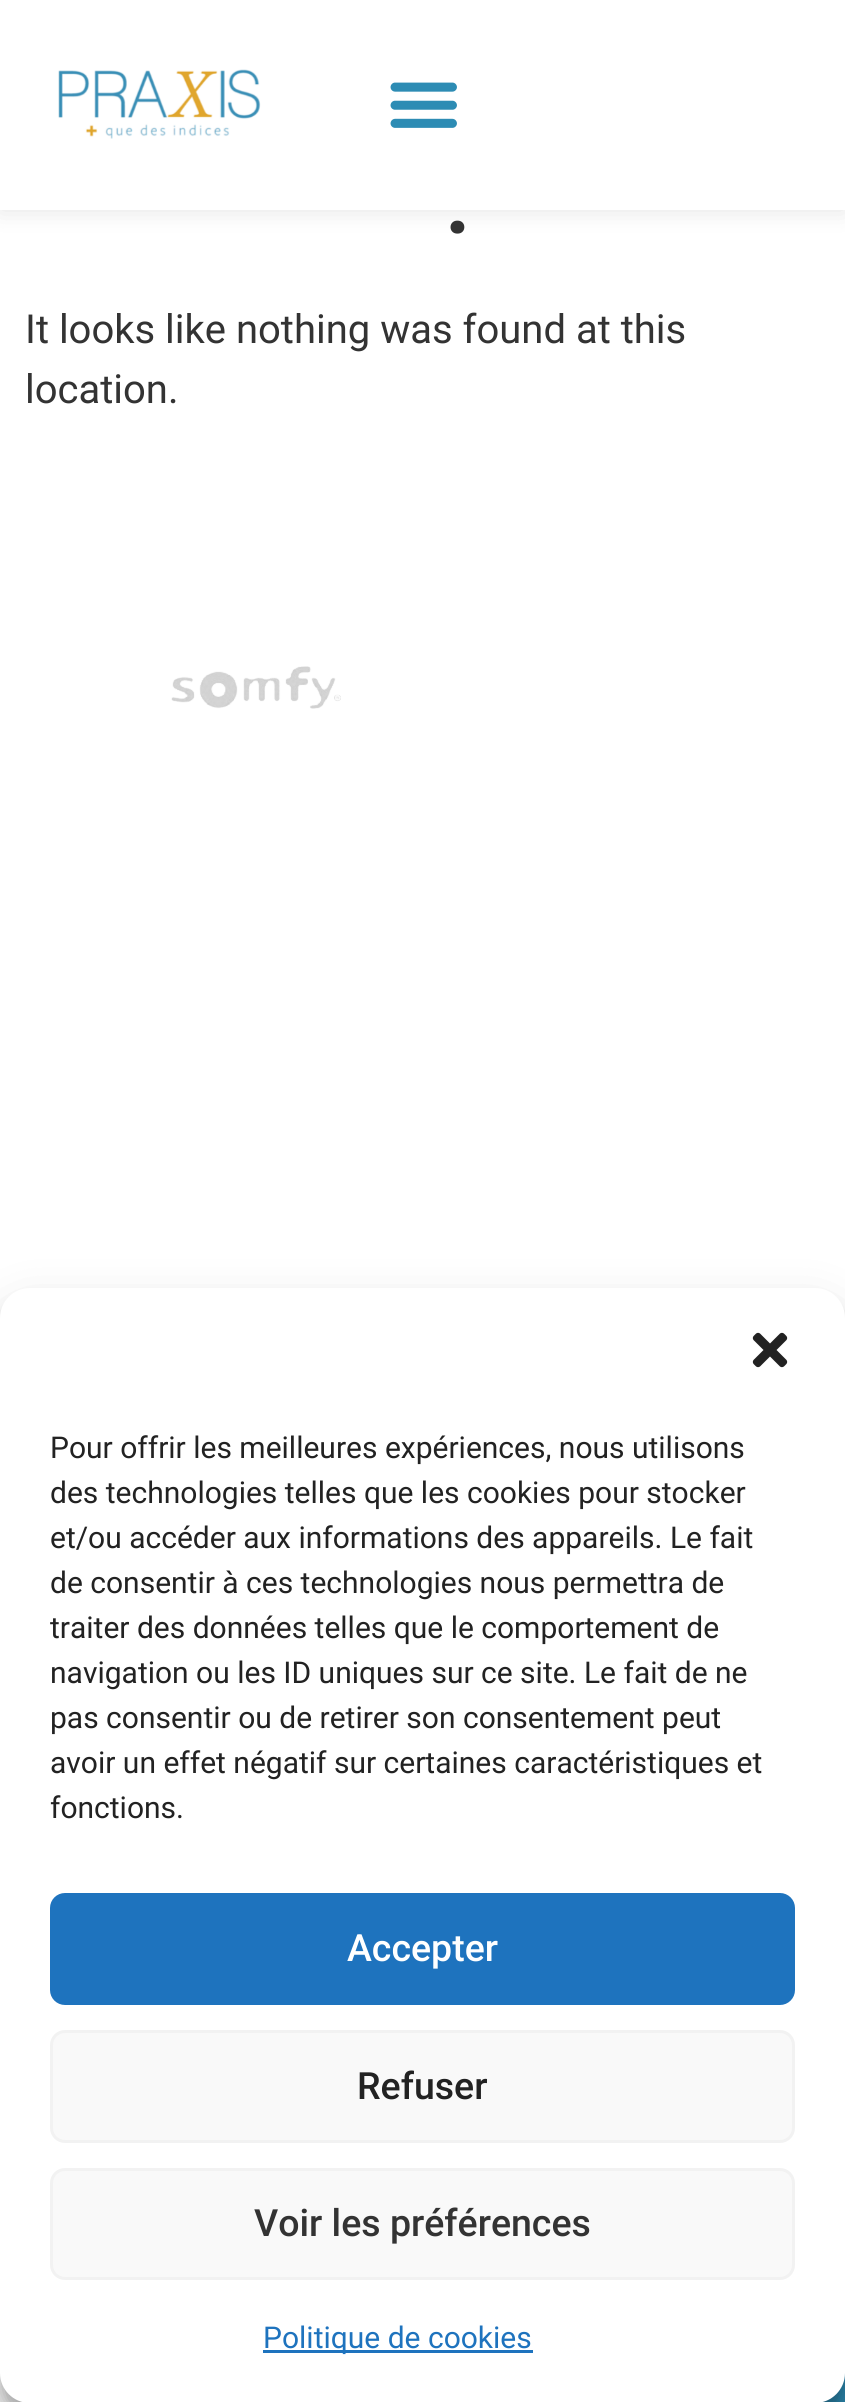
import math
import cairo


def round_path(ctx, x, y, w, h, r):
	ctx.new_sub_path()
	for i, (u, v) in enumerate([(x + w - r, y + h - r), (x + r, y + h - r), (x + r, y + r), (x + w - r, y + r)]):
		ctx.arc(u, v, r, i * math.pi / 2, (i + 1) * math.pi / 2)
	ctx.close_path()

def blur_box(ctx, x, y, w, h, r, blur, alpha):
	ctx.push_group_with_content(cairo.CONTENT_ALPHA)
	ctx.set_operator(cairo.OPERATOR_SOURCE)
	for i in range(15, -16, -2):
		e = blur * i / 6
		if min(w, h) + 2 * e > 0:
			ctx.set_source_rgba(0, 0, 0, alpha * math.erfc((i - 1) / 8.5) / 2)
			round_path(ctx, x - e, y - e, w + 2 * e, h + 2 * e, max(0, min(r + e + blur * .6, min(w, h) / 2 + e)))
			ctx.fill()
	ctx.mask(ctx.pop_group())

def paste(ctx, path, x, y, w, h):
	ctx.save()
	ctx.set_source_surface(cairo.ImageSurface.create_from_png(path), x, y)
	ctx.rectangle(x, y, w, h)
	ctx.fill()
	ctx.restore()

def draw(ctx):
	ctx.set_source_rgb(1, 1, 1)
	ctx.paint()
	ctx.set_source_rgb(0, 0, 0)
	blur_box(ctx, 0, 0, 845, 210, 0, 12.5, 0.11)
	ctx.set_source_rgb(1, 1, 1)
	ctx.rectangle(0, 0, 845, 210)
	ctx.fill()
	paste(ctx, 'media/1.png', 58, 69, 203, 70)
	paste(ctx, 'media/2.png', 390, 82, 67, 46)
	ctx.select_font_face('Roboto Medium')
	ctx.set_font_size(100)
	ctx.set_source_rgb(0.2, 0.2, 0.2)
	ctx.move_to(444, 233)
	ctx.show_text('.')
	ctx.select_font_face('Roboto')
	ctx.set_font_size(40)
	ctx.move_to(25, 343)
	ctx.show_text('It looks like nothing was found at this')
	ctx.move_to(25, 403)
	ctx.show_text('location.')
	paste(ctx, 'media/3.png', 171, 666, 170, 43)
	ctx.set_source_rgb(0.176, 0.549, 0.706)
	ctx.rectangle(822, 2373, 23, 29)
	ctx.fill()
	ctx.set_source_rgb(0, 0, 0)
	blur_box(ctx, 0, 1303, 845, 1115, 30, 7.5, 0.23)
	blur_box(ctx, 0, 1313, 845, 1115, 30, 25, 0.19)
	ctx.set_source_rgb(1, 1, 1)
	round_path(ctx, 0, 1288, 845, 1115, 30)
	ctx.fill()
	paste(ctx, 'media/4.png', 752, 1332, 36, 36)
	ctx.set_font_size(30)
	ctx.set_source_rgb(0.133, 0.133, 0.133)
	for x, y, s in [
		(50, 1458, 'Pour offrir les meilleures expériences, nous utilisons'),
		(50, 1503, 'des technologies telles que les cookies pour stocker'),
		(50, 1548, 'et/ou accéder aux informations des appareils. Le fait'),
		(50, 1593, 'de consentir à ces technologies nous permettra de'),
		(50, 1638, 'traiter des données telles que le comportement de'),
		(50, 1683, 'navigation ou les ID uniques sur ce site. Le fait de ne'),
		(50, 1728, 'pas consentir ou de retirer son consentement peut'),
		(50, 1773, 'avoir un effet négatif sur certaines caractéristiques et'),
		(50, 1818, 'fonctions.'),
	]:
		ctx.move_to(x, y)
		ctx.show_text(s)
	ctx.set_source_rgb(0.118, 0.451, 0.745)
	round_path(ctx, 51.5, 1894.5, 742, 109, 13.5)
	ctx.fill_preserve()
	ctx.set_line_width(3)
	ctx.stroke()
	ctx.select_font_face('Roboto Medium')
	ctx.set_font_size(37.5)
	ctx.set_source_rgb(1, 1, 1)
	ctx.move_to(347, 1961)
	ctx.show_text('Accepter')
	ctx.set_source_rgb(0.976, 0.976, 0.976)
	round_path(ctx, 51.5, 2031.5, 742, 110, 13.5)
	ctx.fill_preserve()
	ctx.set_source_rgb(0.949, 0.949, 0.949)
	ctx.stroke()
	ctx.set_source_rgb(0.133, 0.133, 0.133)
	ctx.move_to(357, 2099)
	ctx.show_text('Refuser')
	ctx.set_source_rgb(0.976, 0.976, 0.976)
	round_path(ctx, 51.5, 2169.5, 742, 109, 13.5)
	ctx.fill_preserve()
	ctx.set_source_rgb(0.949, 0.949, 0.949)
	ctx.stroke()
	ctx.set_source_rgb(0.2, 0.2, 0.2)
	ctx.move_to(254, 2236)
	ctx.show_text('Voir les préférences')
	ctx.set_source_rgb(0.118, 0.451, 0.745)
	ctx.rectangle(263, 2350, 270, 3)
	ctx.fill()
	ctx.select_font_face('Roboto')
	ctx.set_font_size(30)
	ctx.move_to(263, 2348)
	ctx.show_text('Politique de cookies')


surface = cairo.ImageSurface(cairo.FORMAT_RGB24, 845, 2402)
ctx = cairo.Context(surface)
options = cairo.FontOptions()
options.set_hint_metrics(cairo.HINT_METRICS_OFF)
options.set_hint_style(cairo.HINT_STYLE_NONE)
ctx.set_font_options(options)
ctx.set_miter_limit(4)
draw(ctx)
surface.write_to_png('image.png')
